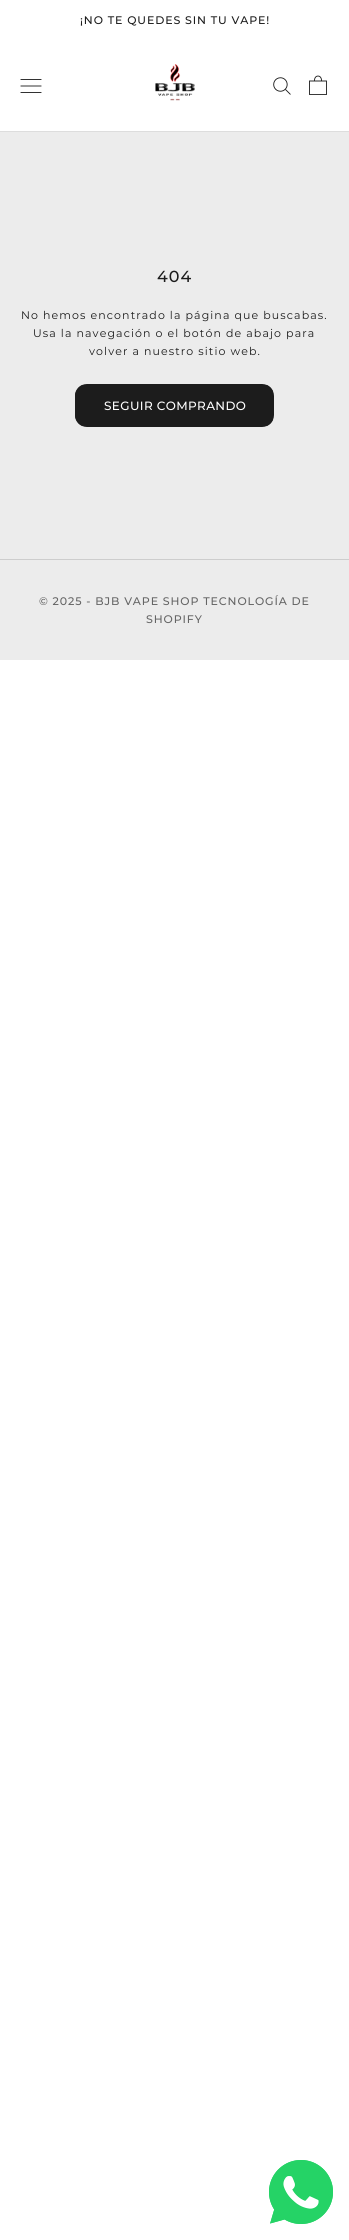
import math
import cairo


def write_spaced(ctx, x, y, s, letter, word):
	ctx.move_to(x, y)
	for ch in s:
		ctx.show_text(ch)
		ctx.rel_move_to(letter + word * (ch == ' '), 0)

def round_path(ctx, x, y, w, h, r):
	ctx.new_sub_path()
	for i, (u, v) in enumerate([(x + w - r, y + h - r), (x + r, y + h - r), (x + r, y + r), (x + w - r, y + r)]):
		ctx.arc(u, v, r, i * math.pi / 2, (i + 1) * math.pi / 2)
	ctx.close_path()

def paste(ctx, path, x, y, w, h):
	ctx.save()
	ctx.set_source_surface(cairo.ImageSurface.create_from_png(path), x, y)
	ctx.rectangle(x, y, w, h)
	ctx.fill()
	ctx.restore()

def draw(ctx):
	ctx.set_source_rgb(1, 1, 1)
	ctx.paint()
	ctx.select_font_face('Montserrat Medium')
	ctx.set_font_size(11)
	ctx.set_source_rgb(0.11, 0.11, 0.11)
	write_spaced(ctx, 80, 24, '¡NO TE QUEDES SIN TU VAPE!', 0.9, 0)
	ctx.set_source_rgb(0.867, 0.867, 0.867)
	ctx.rectangle(0, 131, 349, 1)
	ctx.fill()
	ctx.new_path()
	ctx.move_to(21, 92.5)
	ctx.line_to(41, 92.5)
	ctx.move_to(21, 86)
	ctx.line_to(41, 86)
	ctx.move_to(21, 79.5)
	ctx.line_to(41, 79.5)
	ctx.set_source_rgb(0.11, 0.11, 0.11)
	ctx.set_line_width(0.9)
	ctx.set_line_cap(cairo.LINE_CAP_SQUARE)
	ctx.stroke()
	paste(ctx, 'media/1.png', 155, 64, 40, 37)
	paste(ctx, 'media/2.png', 273, 77, 18, 18)
	ctx.new_path()
	ctx.move_to(326.5, 94.5)
	ctx.line_to(326.5, 81)
	ctx.line_to(309.5, 81)
	ctx.line_to(309.5, 94.5)
	ctx.close_path()
	ctx.move_to(314.5, 80.5)
	ctx.curve_to(314.5, 74.5, 321.5, 74.5, 321.5, 80.5)
	ctx.set_line_cap(cairo.LINE_CAP_BUTT)
	ctx.stroke()
	ctx.set_source_rgb(0.925, 0.925, 0.925)
	ctx.rectangle(0, 132, 349, 427)
	ctx.fill()
	ctx.set_font_size(16)
	ctx.set_source_rgb(0.11, 0.11, 0.11)
	write_spaced(ctx, 157, 282, '404', 1, 0)
	ctx.select_font_face('Montserrat')
	ctx.set_font_size(11)
	for x, y, s in [
		(21, 319, 'No hemos encontrado la página que buscabas.'),
		(33, 337, 'Usa la navegación o el botón de abajo para'),
		(89, 355, 'volver a nuestro sitio web.'),
	]:
		write_spaced(ctx, x, y, s, 1.1, 0)
	ctx.save()
	round_path(ctx, 75, 384, 199, 43, 12)
	ctx.clip()
	ctx.rectangle(75, 385, 198, 41)
	ctx.fill()
	ctx.restore()
	round_path(ctx, 75.5, 384.5, 198, 42, 11.5)
	ctx.set_line_width(1)
	ctx.stroke()
	ctx.select_font_face('Montserrat Medium')
	ctx.set_font_size(12)
	ctx.set_source_rgb(1, 1, 1)
	write_spaced(ctx, 104, 410, 'SEGUIR COMPRANDO', 0.4, 0)
	ctx.set_source_rgb(0.925, 0.925, 0.925)
	ctx.rectangle(0, 560, 349, 100)
	ctx.fill()
	ctx.set_source_rgb(0.804, 0.804, 0.804)
	ctx.rectangle(0, 559, 349, 1)
	ctx.fill()
	ctx.set_font_size(11)
	ctx.set_source_rgb(0.396, 0.396, 0.396)
	write_spaced(ctx, 39, 605, '© 2025 - BJB VAPE SHOP TECNOLOGÍA DE', 0.9, 0)
	write_spaced(ctx, 146, 623, 'SHOPIFY', 0.9, 0)
	paste(ctx, 'media/3.png', 269, 2160, 64, 64)
	paste(ctx, 'media/4.png', 269, 2160, 64, 64)


surface = cairo.ImageSurface(cairo.FORMAT_RGB24, 349, 2240)
ctx = cairo.Context(surface)
options = cairo.FontOptions()
options.set_hint_metrics(cairo.HINT_METRICS_OFF)
options.set_hint_style(cairo.HINT_STYLE_NONE)
ctx.set_font_options(options)
ctx.set_miter_limit(4)
draw(ctx)
surface.write_to_png('image.png')
